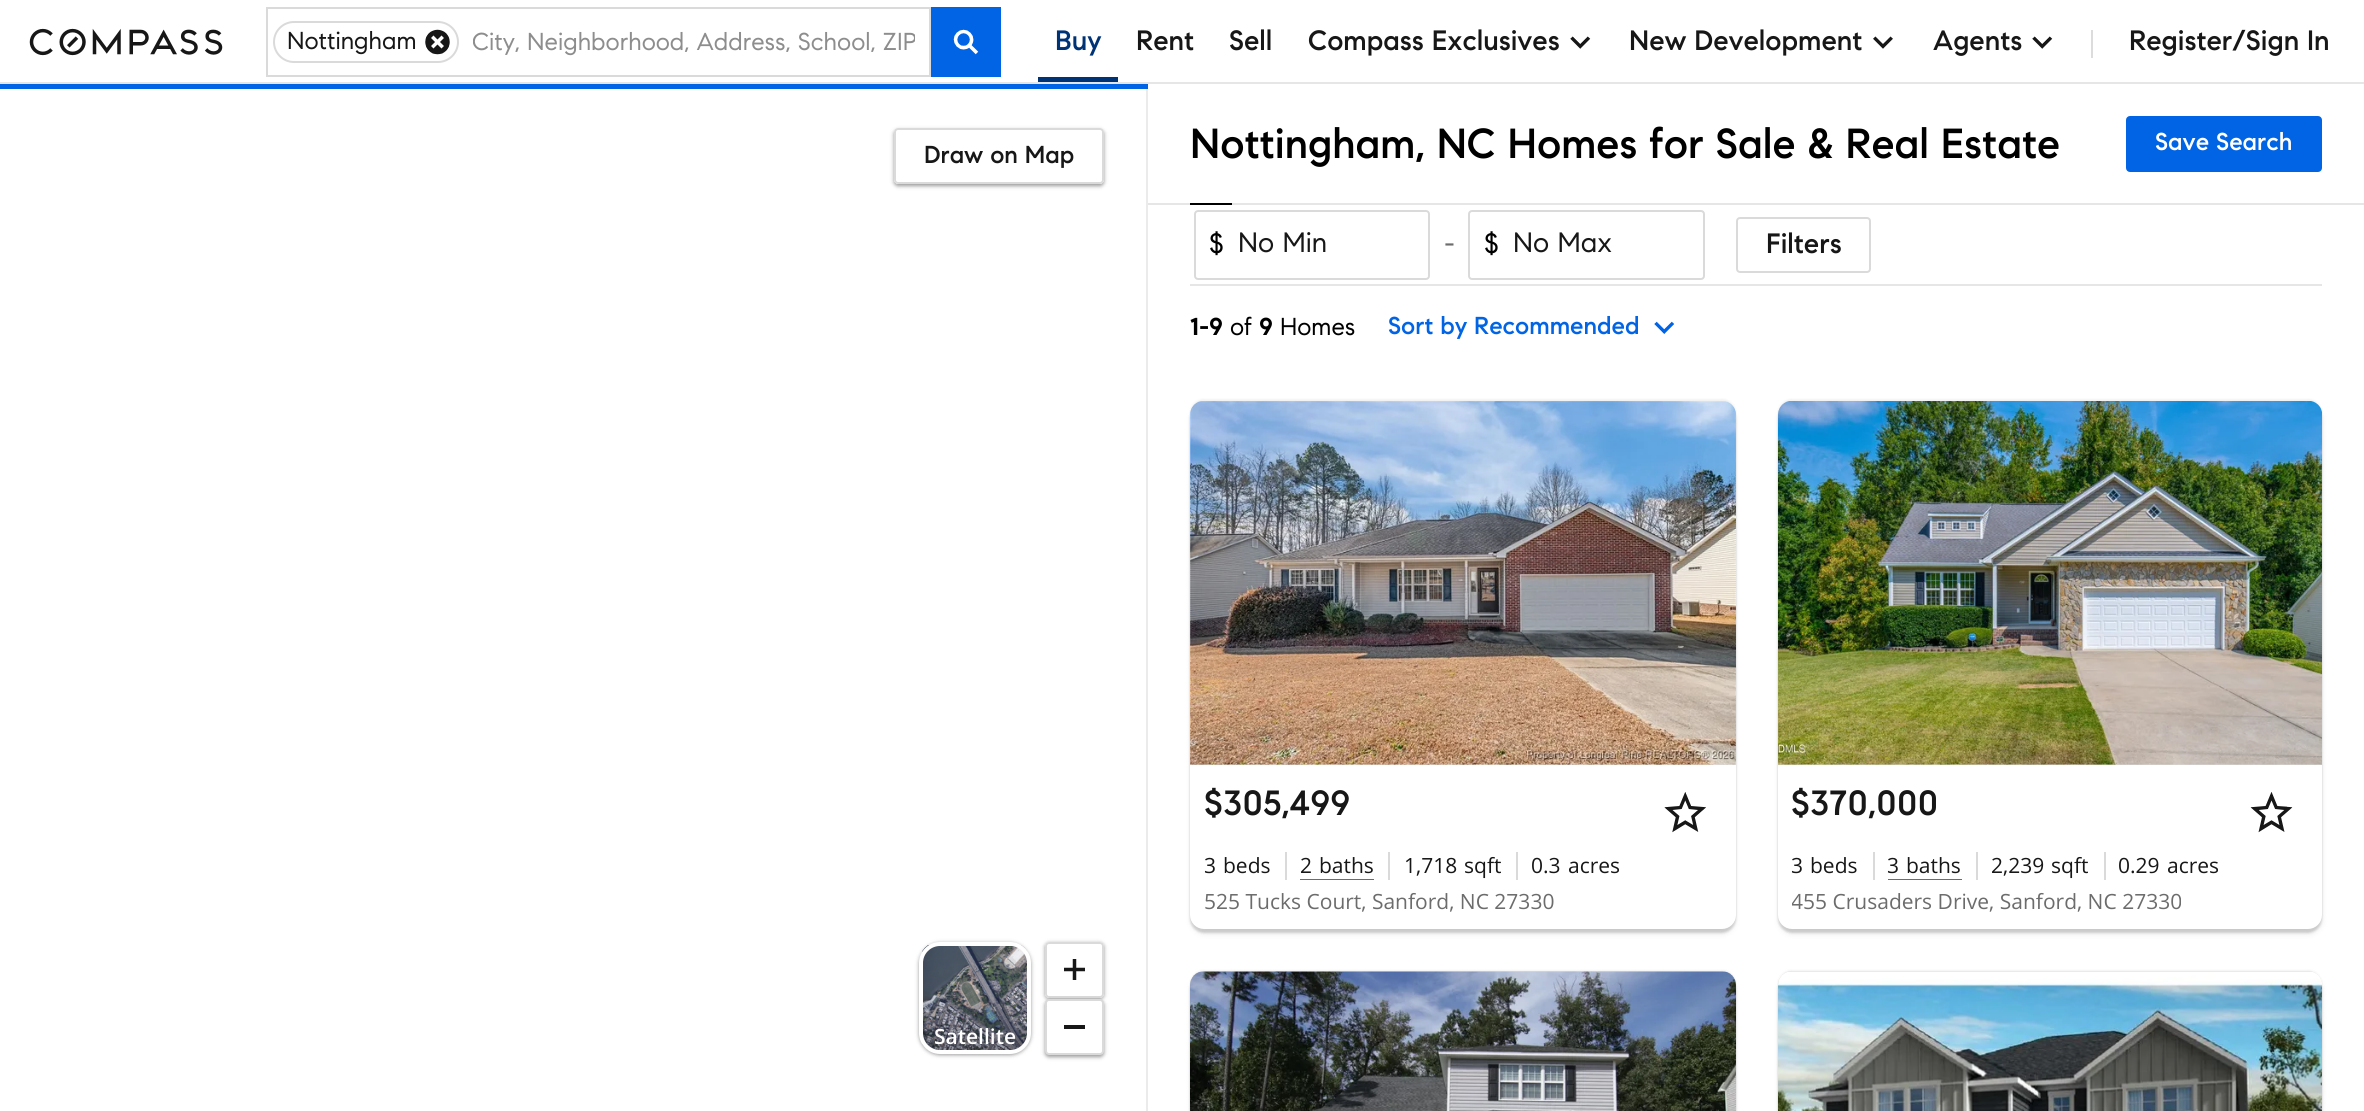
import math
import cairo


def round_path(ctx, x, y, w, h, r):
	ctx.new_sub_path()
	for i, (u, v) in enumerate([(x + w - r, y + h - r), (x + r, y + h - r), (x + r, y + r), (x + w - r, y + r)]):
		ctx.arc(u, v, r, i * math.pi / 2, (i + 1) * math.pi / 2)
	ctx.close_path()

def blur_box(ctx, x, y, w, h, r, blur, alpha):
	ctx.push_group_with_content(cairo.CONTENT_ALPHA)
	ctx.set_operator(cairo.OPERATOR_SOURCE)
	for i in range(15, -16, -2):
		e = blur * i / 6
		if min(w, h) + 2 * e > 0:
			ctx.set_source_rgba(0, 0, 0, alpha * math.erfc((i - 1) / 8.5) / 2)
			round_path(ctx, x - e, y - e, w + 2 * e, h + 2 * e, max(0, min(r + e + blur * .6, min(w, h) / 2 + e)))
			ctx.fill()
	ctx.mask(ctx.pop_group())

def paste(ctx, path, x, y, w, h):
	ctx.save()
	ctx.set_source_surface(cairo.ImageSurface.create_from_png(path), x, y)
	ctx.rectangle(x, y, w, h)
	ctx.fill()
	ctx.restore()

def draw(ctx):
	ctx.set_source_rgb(1, 1, 1)
	ctx.paint()
	ctx.set_source_rgb(0.902, 0.902, 0.902)
	ctx.rectangle(0, 82, 2364, 2)
	ctx.fill()
	paste(ctx, 'media/1.png', 29, 28, 194, 28)
	ctx.rectangle(267, 8, 663, 68)
	ctx.set_source_rgb(0.855, 0.855, 0.855)
	ctx.stroke()
	round_path(ctx, 274, 22, 184, 40, 20)
	ctx.stroke()
	ctx.select_font_face('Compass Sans')
	ctx.set_font_size(24.5)
	ctx.set_source_rgb(0.09, 0.09, 0.09)
	ctx.move_to(287, 49)
	ctx.show_text('Nottingham')
	paste(ctx, 'media/2.png', 425, 29, 25, 26)
	ctx.save()
	ctx.rectangle(473, 28, 442, 30)
	ctx.clip()
	ctx.set_source_rgb(0.553, 0.553, 0.553)
	ctx.move_to(472, 50)
	ctx.show_text('City, Neighborhood, Address, School, ZIP')
	ctx.restore()
	ctx.set_source_rgb(0, 0.392, 0.898)
	ctx.rectangle(931, 7, 70, 70)
	ctx.fill()
	paste(ctx, 'media/3.png', 953, 29, 26, 26)
	ctx.set_source_rgb(0, 0.2, 0.459)
	ctx.rectangle(1038, 77, 80, 5)
	ctx.fill()
	ctx.select_font_face('Compass Sans Medium')
	ctx.set_font_size(28)
	ctx.move_to(1055, 50)
	ctx.show_text('Buy')
	ctx.set_source_rgb(0.09, 0.09, 0.09)
	for x, y, s in [
		(1136, 50, 'Rent'),
		(1229, 50, 'Sell'),
		(1308, 50, 'Compass Exclusives'),
	]:
		ctx.move_to(x, y)
		ctx.show_text(s)
	paste(ctx, 'media/4.png', 1570, 36, 21, 13)
	ctx.move_to(1629, 50)
	ctx.show_text('New Development')
	paste(ctx, 'media/5.png', 1873, 36, 20, 13)
	ctx.move_to(1933, 50)
	ctx.show_text('Agents')
	paste(ctx, 'media/6.png', 2032, 36, 21, 13)
	ctx.set_source_rgb(0.863, 0.863, 0.863)
	ctx.rectangle(2091, 30, 2, 28)
	ctx.fill()
	ctx.set_source_rgb(0.09, 0.09, 0.09)
	ctx.move_to(2129, 50)
	ctx.show_text('Register/Sign In')
	ctx.set_source_rgba(0, 0, 0, 0.08)
	ctx.new_path()
	ctx.move_to(1148, 84)
	ctx.line_to(1148, 1111)
	ctx.line_to(1146, 1111)
	ctx.line_to(1146, 86)
	ctx.close_path()
	ctx.fill()
	ctx.set_source_rgb(0, 0.392, 0.898)
	ctx.rectangle(0, 84, 1148, 5)
	ctx.fill()
	ctx.save()
	ctx.set_fill_rule(cairo.FILL_RULE_EVEN_ODD)
	ctx.new_path()
	ctx.move_to(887, 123)
	ctx.line_to(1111, 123)
	ctx.line_to(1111, 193)
	ctx.line_to(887, 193)
	ctx.close_path()
	ctx.move_to(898, 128)
	ctx.line_to(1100, 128)
	ctx.curve_to(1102, 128, 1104, 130, 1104, 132)
	ctx.line_to(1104, 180)
	ctx.curve_to(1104, 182, 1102, 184, 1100, 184)
	ctx.line_to(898, 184)
	ctx.curve_to(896, 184, 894, 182, 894, 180)
	ctx.line_to(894, 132)
	ctx.curve_to(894, 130, 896, 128, 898, 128)
	ctx.close_path()
	ctx.clip()
	ctx.set_source_rgb(0, 0, 0)
	blur_box(ctx, 894, 130, 210, 56, 4, 2, 0.4)
	ctx.restore()
	round_path(ctx, 895, 129, 208, 54, 3)
	ctx.set_source_rgb(0.855, 0.855, 0.855)
	ctx.stroke()
	ctx.set_font_size(24.5)
	ctx.set_source_rgb(0.09, 0.09, 0.09)
	ctx.move_to(924, 163)
	ctx.show_text('Draw on Map')
	ctx.set_source_rgb(0, 0, 0)
	blur_box(ctx, 919, 943, 112, 112, 21, 2, 0.4)
	paste(ctx, 'media/7.png', 922, 945, 106, 105)
	round_path(ctx, 921, 944, 108, 108, 19)
	ctx.set_source_rgb(1, 1, 1)
	ctx.set_line_width(4)
	ctx.stroke()
	ctx.select_font_face('Open Sans SemiBold')
	ctx.set_font_size(21)
	ctx.move_to(934, 1044)
	ctx.show_text('Satellite')
	ctx.save()
	ctx.set_fill_rule(cairo.FILL_RULE_EVEN_ODD)
	ctx.new_path()
	ctx.move_to(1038, 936)
	ctx.line_to(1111, 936)
	ctx.line_to(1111, 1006)
	ctx.line_to(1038, 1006)
	ctx.close_path()
	ctx.move_to(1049, 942)
	ctx.line_to(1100, 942)
	ctx.curve_to(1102, 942, 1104, 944, 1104, 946)
	ctx.line_to(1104, 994)
	ctx.curve_to(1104, 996, 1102, 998, 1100, 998)
	ctx.line_to(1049, 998)
	ctx.curve_to(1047, 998, 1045, 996, 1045, 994)
	ctx.line_to(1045, 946)
	ctx.curve_to(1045, 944, 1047, 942, 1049, 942)
	ctx.close_path()
	ctx.clip()
	ctx.set_source_rgb(0, 0, 0)
	blur_box(ctx, 1045, 943, 59, 56, 4, 2, 0.4)
	ctx.restore()
	round_path(ctx, 1046, 943, 57, 54, 3)
	ctx.set_source_rgb(0.855, 0.855, 0.855)
	ctx.set_line_width(2)
	ctx.stroke()
	paste(ctx, 'media/8.png', 1064, 959, 21, 21)
	ctx.set_source_rgb(0, 0, 0)
	blur_box(ctx, 1045, 1001, 59, 56, 4, 2, 0.4)
	ctx.set_source_rgb(1, 1, 1)
	round_path(ctx, 1046, 1000, 57, 54, 3)
	ctx.fill_preserve()
	ctx.set_source_rgb(0.855, 0.855, 0.855)
	ctx.stroke()
	ctx.set_source_rgb(0.09, 0.09, 0.09)
	ctx.rectangle(1064, 1025, 21, 4)
	ctx.fill()
	ctx.set_source_rgb(0.902, 0.902, 0.902)
	ctx.rectangle(1148, 203, 1216, 2)
	ctx.fill()
	ctx.select_font_face('Compass Sans Medium')
	ctx.set_font_size(42)
	ctx.set_source_rgb(0, 0, 0)
	ctx.move_to(1190, 158)
	ctx.show_text('Nottingham, NC Homes for Sale & Real Estate')
	ctx.set_source_rgb(0, 0.392, 0.898)
	round_path(ctx, 2127, 117, 194, 54, 3)
	ctx.fill_preserve()
	ctx.stroke()
	ctx.set_font_size(24.5)
	ctx.set_source_rgb(1, 1, 1)
	ctx.move_to(2155, 150)
	ctx.show_text('Save Search')
	ctx.set_source_rgb(0, 0, 0)
	ctx.rectangle(1190, 203, 42, 2)
	ctx.fill()
	round_path(ctx, 1195, 211, 234, 68, 3)
	ctx.set_source_rgb(0.855, 0.855, 0.855)
	ctx.stroke()
	ctx.select_font_face('Compass Sans')
	ctx.set_font_size(28)
	ctx.set_source_rgb(0, 0, 0)
	ctx.move_to(1209, 253)
	ctx.show_text('$')
	ctx.set_source_rgb(0.09, 0.09, 0.09)
	ctx.move_to(1238, 252)
	ctx.show_text('No Min')
	ctx.set_source_rgb(0.424, 0.424, 0.424)
	ctx.move_to(1444, 253)
	ctx.show_text('-')
	round_path(ctx, 1469, 211, 235, 68, 3)
	ctx.set_source_rgb(0.855, 0.855, 0.855)
	ctx.stroke()
	ctx.set_source_rgb(0, 0, 0)
	ctx.move_to(1484, 253)
	ctx.show_text('$')
	ctx.set_source_rgb(0.09, 0.09, 0.09)
	ctx.move_to(1513, 252)
	ctx.show_text('No Max')
	round_path(ctx, 1737, 218, 133, 54, 3)
	ctx.set_source_rgb(0.855, 0.855, 0.855)
	ctx.stroke()
	ctx.select_font_face('Compass Sans Medium')
	ctx.set_source_rgb(0.09, 0.09, 0.09)
	ctx.move_to(1766, 253)
	ctx.show_text('Filters')
	ctx.set_source_rgb(0.902, 0.902, 0.902)
	ctx.rectangle(1190, 284, 1132, 2)
	ctx.fill()
	ctx.select_font_face('Compass Sans', cairo.FONT_SLANT_NORMAL, cairo.FONT_WEIGHT_BOLD)
	ctx.set_font_size(24.5)
	ctx.set_source_rgb(0, 0, 0)
	ctx.move_to(1190, 335)
	ctx.show_text('1-9')
	ctx.select_font_face('Compass Sans')
	ctx.move_to(1230, 335)
	ctx.show_text('of')
	ctx.select_font_face('Compass Sans', cairo.FONT_SLANT_NORMAL, cairo.FONT_WEIGHT_BOLD)
	ctx.move_to(1259, 335)
	ctx.show_text('9')
	ctx.select_font_face('Compass Sans')
	ctx.move_to(1280, 335)
	ctx.show_text('Homes')
	ctx.select_font_face('Compass Sans Medium')
	ctx.set_source_rgb(0, 0.392, 0.898)
	ctx.move_to(1388, 334)
	ctx.show_text('Sort by Recommended')
	paste(ctx, 'media/9.png', 1654, 321, 20, 13)
	ctx.set_source_rgb(0, 0, 0)
	blur_box(ctx, 1190, 399, 546, 529, 14, 1, 0.06)
	blur_box(ctx, 1190, 404, 546, 529, 14, 1, 0.14)
	blur_box(ctx, 1192, 408, 542, 525, 12, 3.5, 0.1)
	ctx.set_source_rgb(1, 1, 1)
	round_path(ctx, 1190, 401, 546, 528, 14)
	ctx.fill()
	ctx.set_source_rgb(0.855, 0.855, 0.855)
	ctx.new_path()
	ctx.move_to(1204, 401)
	ctx.line_to(1722, 401)
	ctx.curve_to(1729.5, 401, 1736, 407.5, 1736, 415)
	ctx.line_to(1736, 765)
	ctx.line_to(1190, 765)
	ctx.line_to(1190, 415)
	ctx.curve_to(1190, 407.5, 1196.5, 401, 1204, 401)
	ctx.close_path()
	ctx.fill()
	paste(ctx, 'media/10.png', 1190, 401, 546, 364)
	ctx.set_font_size(35)
	ctx.set_source_rgb(0.09, 0.09, 0.09)
	ctx.move_to(1204, 815)
	ctx.show_text('$305,499')
	paste(ctx, 'media/11.png', 1664, 792, 42, 41)
	ctx.select_font_face('Open Sans')
	ctx.set_font_size(21)
	ctx.move_to(1204, 873)
	ctx.show_text('3')
	ctx.move_to(1223, 873)
	ctx.show_text('beds')
	ctx.set_source_rgb(0.855, 0.855, 0.855)
	ctx.rectangle(1285, 852, 2, 28)
	ctx.fill()
	ctx.set_source_rgb(0.424, 0.424, 0.424)
	ctx.rectangle(1300, 879, 74, 1)
	ctx.fill()
	ctx.set_source_rgb(0.09, 0.09, 0.09)
	ctx.move_to(1300, 873)
	ctx.show_text('2')
	ctx.move_to(1319, 873)
	ctx.show_text('baths')
	ctx.set_source_rgb(0.855, 0.855, 0.855)
	ctx.rectangle(1388, 852, 2, 28)
	ctx.fill()
	ctx.set_source_rgb(0.09, 0.09, 0.09)
	ctx.move_to(1404, 873)
	ctx.show_text('1,718')
	ctx.move_to(1464, 873)
	ctx.show_text('sqft')
	ctx.set_source_rgb(0.855, 0.855, 0.855)
	ctx.rectangle(1516, 852, 2, 28)
	ctx.fill()
	ctx.set_source_rgb(0.09, 0.09, 0.09)
	ctx.move_to(1531, 873)
	ctx.show_text('0.3')
	ctx.move_to(1568, 873)
	ctx.show_text('acres')
	ctx.set_source_rgb(0.424, 0.424, 0.424)
	ctx.move_to(1204, 909)
	ctx.show_text('525 Tucks Court, Sanford, NC 27330')
	ctx.set_source_rgb(0, 0, 0)
	blur_box(ctx, 1778, 399, 544, 529, 14, 1, 0.06)
	blur_box(ctx, 1778, 404, 544, 529, 14, 1, 0.14)
	blur_box(ctx, 1780, 408, 541, 525, 12, 3.5, 0.1)
	ctx.set_source_rgb(1, 1, 1)
	round_path(ctx, 1778, 401, 544, 528, 14)
	ctx.fill()
	ctx.set_source_rgb(0.855, 0.855, 0.855)
	ctx.new_path()
	ctx.move_to(1792, 401)
	ctx.line_to(2308, 401)
	ctx.curve_to(2315.5, 401, 2322, 407.5, 2322, 415)
	ctx.line_to(2322, 765)
	ctx.line_to(1778, 765)
	ctx.line_to(1778, 415)
	ctx.curve_to(1778, 407.5, 1784.5, 401, 1792, 401)
	ctx.close_path()
	ctx.fill()
	paste(ctx, 'media/12.png', 1778, 401, 544, 364)
	ctx.select_font_face('Compass Sans Medium')
	ctx.set_font_size(35)
	ctx.set_source_rgb(0.09, 0.09, 0.09)
	ctx.move_to(1791, 815)
	ctx.show_text('$370,000')
	paste(ctx, 'media/13.png', 2250, 792, 43, 41)
	ctx.select_font_face('Open Sans')
	ctx.set_font_size(21)
	ctx.move_to(1791, 873)
	ctx.show_text('3')
	ctx.move_to(1810, 873)
	ctx.show_text('beds')
	ctx.set_source_rgb(0.855, 0.855, 0.855)
	ctx.rectangle(1873, 852, 2, 28)
	ctx.fill()
	ctx.set_source_rgb(0.424, 0.424, 0.424)
	ctx.rectangle(1888, 879, 74, 1)
	ctx.fill()
	ctx.set_source_rgb(0.09, 0.09, 0.09)
	ctx.move_to(1887, 873)
	ctx.show_text('3')
	ctx.move_to(1906, 873)
	ctx.show_text('baths')
	ctx.set_source_rgb(0.855, 0.855, 0.855)
	ctx.rectangle(1976, 852, 2, 28)
	ctx.fill()
	ctx.set_source_rgb(0.09, 0.09, 0.09)
	ctx.move_to(1991, 873)
	ctx.show_text('2,239')
	ctx.move_to(2051, 873)
	ctx.show_text('sqft')
	ctx.set_source_rgb(0.855, 0.855, 0.855)
	ctx.rectangle(2104, 852, 2, 28)
	ctx.fill()
	ctx.set_source_rgb(0.09, 0.09, 0.09)
	ctx.move_to(2118, 873)
	ctx.show_text('0.29')
	ctx.move_to(2167, 873)
	ctx.show_text('acres')
	ctx.save()
	ctx.rectangle(1792, 887, 516, 28)
	ctx.clip()
	ctx.set_source_rgb(0.424, 0.424, 0.424)
	ctx.move_to(1791, 909)
	ctx.show_text('455 Crusaders Drive, Sanford, NC 27330')
	ctx.restore()
	ctx.set_source_rgb(0, 0, 0)
	blur_box(ctx, 1190, 970, 546, 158, 14, 1, 0.06)
	blur_box(ctx, 1190, 975, 546, 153, 14, 1, 0.14)
	blur_box(ctx, 1192, 978, 542, 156, 12, 3.5, 0.1)
	ctx.set_source_rgb(0.855, 0.855, 0.855)
	ctx.new_path()
	ctx.move_to(1204, 971)
	ctx.line_to(1722, 971)
	ctx.curve_to(1729.5, 971, 1736, 977.5, 1736, 985)
	ctx.line_to(1736, 1111)
	ctx.line_to(1190, 1111)
	ctx.line_to(1190, 985)
	ctx.curve_to(1190, 977.5, 1196.5, 971, 1204, 971)
	ctx.close_path()
	ctx.fill()
	paste(ctx, 'media/14.png', 1190, 971, 546, 140)
	ctx.set_source_rgb(0, 0, 0)
	blur_box(ctx, 1778, 970, 544, 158, 14, 1, 0.06)
	blur_box(ctx, 1778, 975, 544, 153, 14, 1, 0.14)
	blur_box(ctx, 1780, 978, 541, 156, 12, 3.5, 0.1)
	ctx.set_source_rgb(0.855, 0.855, 0.855)
	ctx.new_path()
	ctx.move_to(1792, 971)
	ctx.line_to(2308, 971)
	ctx.curve_to(2315.5, 971, 2322, 977.5, 2322, 985)
	ctx.line_to(2322, 1111)
	ctx.line_to(1778, 1111)
	ctx.line_to(1778, 985)
	ctx.curve_to(1778, 977.5, 1784.5, 971, 1792, 971)
	ctx.close_path()
	ctx.fill()
	paste(ctx, 'media/15.png', 1778, 971, 544, 140)


surface = cairo.ImageSurface(cairo.FORMAT_RGB24, 2364, 1111)
ctx = cairo.Context(surface)
options = cairo.FontOptions()
options.set_hint_metrics(cairo.HINT_METRICS_OFF)
options.set_hint_style(cairo.HINT_STYLE_NONE)
ctx.set_font_options(options)
ctx.set_miter_limit(4)
draw(ctx)
surface.write_to_png('image.png')
